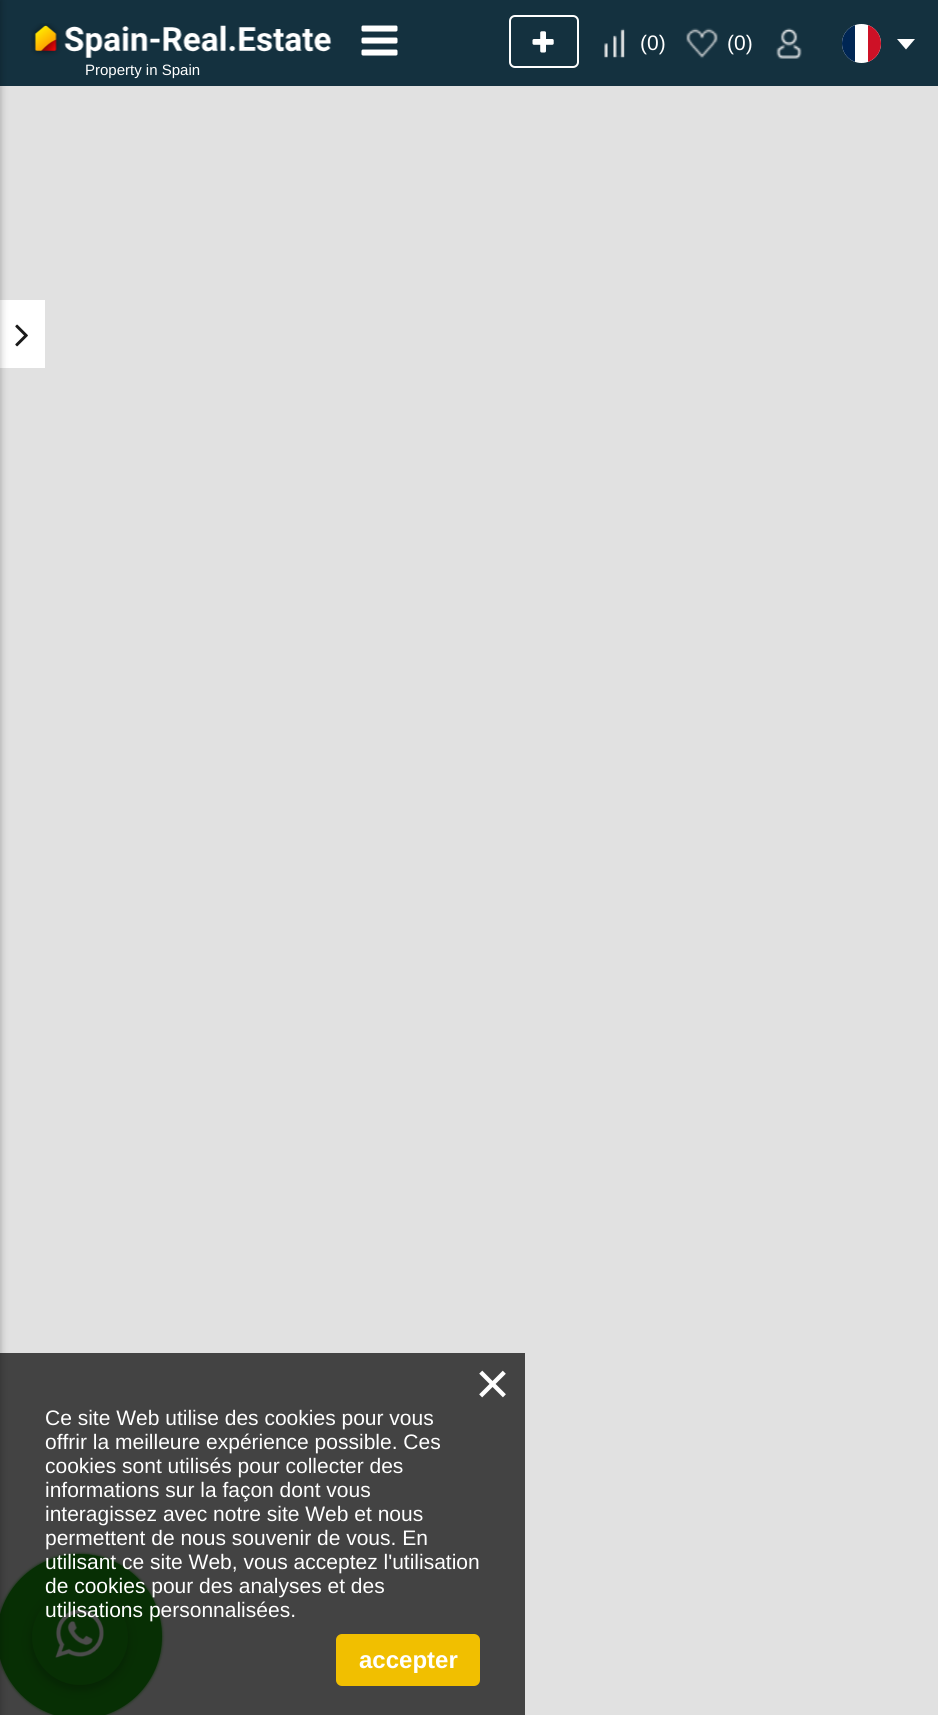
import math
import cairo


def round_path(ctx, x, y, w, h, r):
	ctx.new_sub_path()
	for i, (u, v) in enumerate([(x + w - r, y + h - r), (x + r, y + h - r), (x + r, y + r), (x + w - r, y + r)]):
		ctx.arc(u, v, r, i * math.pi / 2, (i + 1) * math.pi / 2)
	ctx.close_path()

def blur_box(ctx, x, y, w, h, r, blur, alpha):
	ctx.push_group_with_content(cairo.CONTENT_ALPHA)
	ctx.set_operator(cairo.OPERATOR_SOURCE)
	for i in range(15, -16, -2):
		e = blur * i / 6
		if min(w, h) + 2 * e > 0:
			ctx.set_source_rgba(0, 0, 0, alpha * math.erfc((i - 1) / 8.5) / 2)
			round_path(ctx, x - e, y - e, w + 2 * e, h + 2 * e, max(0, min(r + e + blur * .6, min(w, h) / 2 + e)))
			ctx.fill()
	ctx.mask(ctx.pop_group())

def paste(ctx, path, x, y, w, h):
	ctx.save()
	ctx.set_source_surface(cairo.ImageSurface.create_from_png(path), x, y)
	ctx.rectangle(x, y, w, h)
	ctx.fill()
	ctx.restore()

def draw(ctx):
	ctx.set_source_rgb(0.882, 0.882, 0.882)
	ctx.paint()
	ctx.set_source_rgb(0.082, 0.192, 0.247)
	ctx.rectangle(0, 0, 938, 86)
	ctx.fill()
	ctx.set_source_rgb(1, 1, 1)
	ctx.rectangle(0, 300, 45, 68)
	ctx.fill()
	ctx.set_source_rgb(0.094, 0.616, 0.055)
	blur_box(ctx, -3, 1554, 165, 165, 82.5, 1.5, 1)
	ctx.set_source_rgb(0.094, 0.616, 0.055)
	ctx.arc(79.5, 1636.5, 82.5, 0, 2 * math.pi)
	ctx.fill()
	ctx.set_source_rgb(0, 0, 0)
	blur_box(ctx, -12, 0, 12, 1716, 0, 4, 0.3)
	paste(ctx, 'media/1.png', 361, 25, 37, 31)
	round_path(ctx, 510, 16, 68, 51, 5)
	ctx.set_source_rgb(1, 1, 1)
	ctx.stroke()
	paste(ctx, 'media/2.png', 532, 31, 22, 22)
	paste(ctx, 'media/3.png', 604, 28, 21, 30)
	ctx.select_font_face('Liberation Sans')
	ctx.set_font_size(21)
	ctx.move_to(640, 50)
	ctx.show_text('(0)')
	paste(ctx, 'media/4.png', 686, 28, 32, 31)
	ctx.move_to(727, 50)
	ctx.show_text('(0)')
	paste(ctx, 'media/5.png', 776, 28, 26, 31)
	ctx.arc(861.5, 43.5, 19.5, 0, 2 * math.pi)
	ctx.fill()
	ctx.save()
	round_path(ctx, 842, 24, 39, 39, 19.5)
	ctx.clip()
	ctx.set_source_rgb(0, 0.149, 0.329)
	ctx.rectangle(842, 25, 13, 37)
	ctx.fill()
	ctx.set_source_rgb(0.808, 0.067, 0.149)
	ctx.rectangle(868, 25, 13, 37)
	ctx.fill()
	ctx.restore()
	ctx.new_path()
	ctx.move_to(897, 39)
	ctx.line_to(915, 39)
	ctx.line_to(906, 49.5)
	ctx.close_path()
	ctx.fill()
	paste(ctx, 'media/6.png', 31, 23, 301, 35)
	ctx.set_font_size(15)
	ctx.move_to(85, 75)
	ctx.show_text('Property in Spain')
	paste(ctx, 'media/7.png', 15, 324, 13, 23)
	ctx.set_source_rgb(0, 0, 0)
	blur_box(ctx, 30, 1592, 99, 99, 49.5, 4, 0.2)
	ctx.set_source_rgb(0.094, 0.616, 0.055)
	ctx.arc(80, 1637, 48, 0, 2 * math.pi)
	ctx.fill()
	paste(ctx, 'media/8.png', 55, 1609, 49, 49)
	ctx.set_source_rgba(0, 0, 0, 0.7)
	ctx.rectangle(0, 1353, 525, 362)
	ctx.fill()
	ctx.set_font_size(60)
	ctx.set_source_rgb(1, 1, 1)
	ctx.move_to(475, 1404)
	ctx.show_text('×')
	ctx.set_font_size(21)
	for x, y, s in [
		(45, 1425, 'Ce site Web utilise des cookies pour vous'),
		(45, 1449, 'offrir la meilleure expérience possible. Ces'),
		(45, 1473, 'cookies sont utilisés pour collecter des'),
		(45, 1497, 'informations sur la façon dont vous'),
		(45, 1521, 'interagissez avec notre site Web et nous'),
		(45, 1545, 'permettent de nous souvenir de vous. En'),
		(45, 1569, 'utilisant ce site Web, vous acceptez l\'utilisation'),
		(45, 1593, 'de cookies pour des analyses et des'),
		(45, 1617, 'utilisations personnalisées.'),
	]:
		ctx.move_to(x, y)
		ctx.show_text(s)
	ctx.set_source_rgb(0.945, 0.749, 0)
	round_path(ctx, 336, 1634, 144, 52, 6)
	ctx.fill()
	ctx.select_font_face('Liberation Sans', cairo.FONT_SLANT_NORMAL, cairo.FONT_WEIGHT_BOLD)
	ctx.set_font_size(24)
	ctx.set_source_rgb(1, 1, 1)
	ctx.move_to(359, 1668)
	ctx.show_text('accepter')


surface = cairo.ImageSurface(cairo.FORMAT_RGB24, 938, 1715)
ctx = cairo.Context(surface)
options = cairo.FontOptions()
options.set_hint_metrics(cairo.HINT_METRICS_OFF)
options.set_hint_style(cairo.HINT_STYLE_NONE)
ctx.set_font_options(options)
ctx.set_miter_limit(4)
draw(ctx)
surface.write_to_png('image.png')
